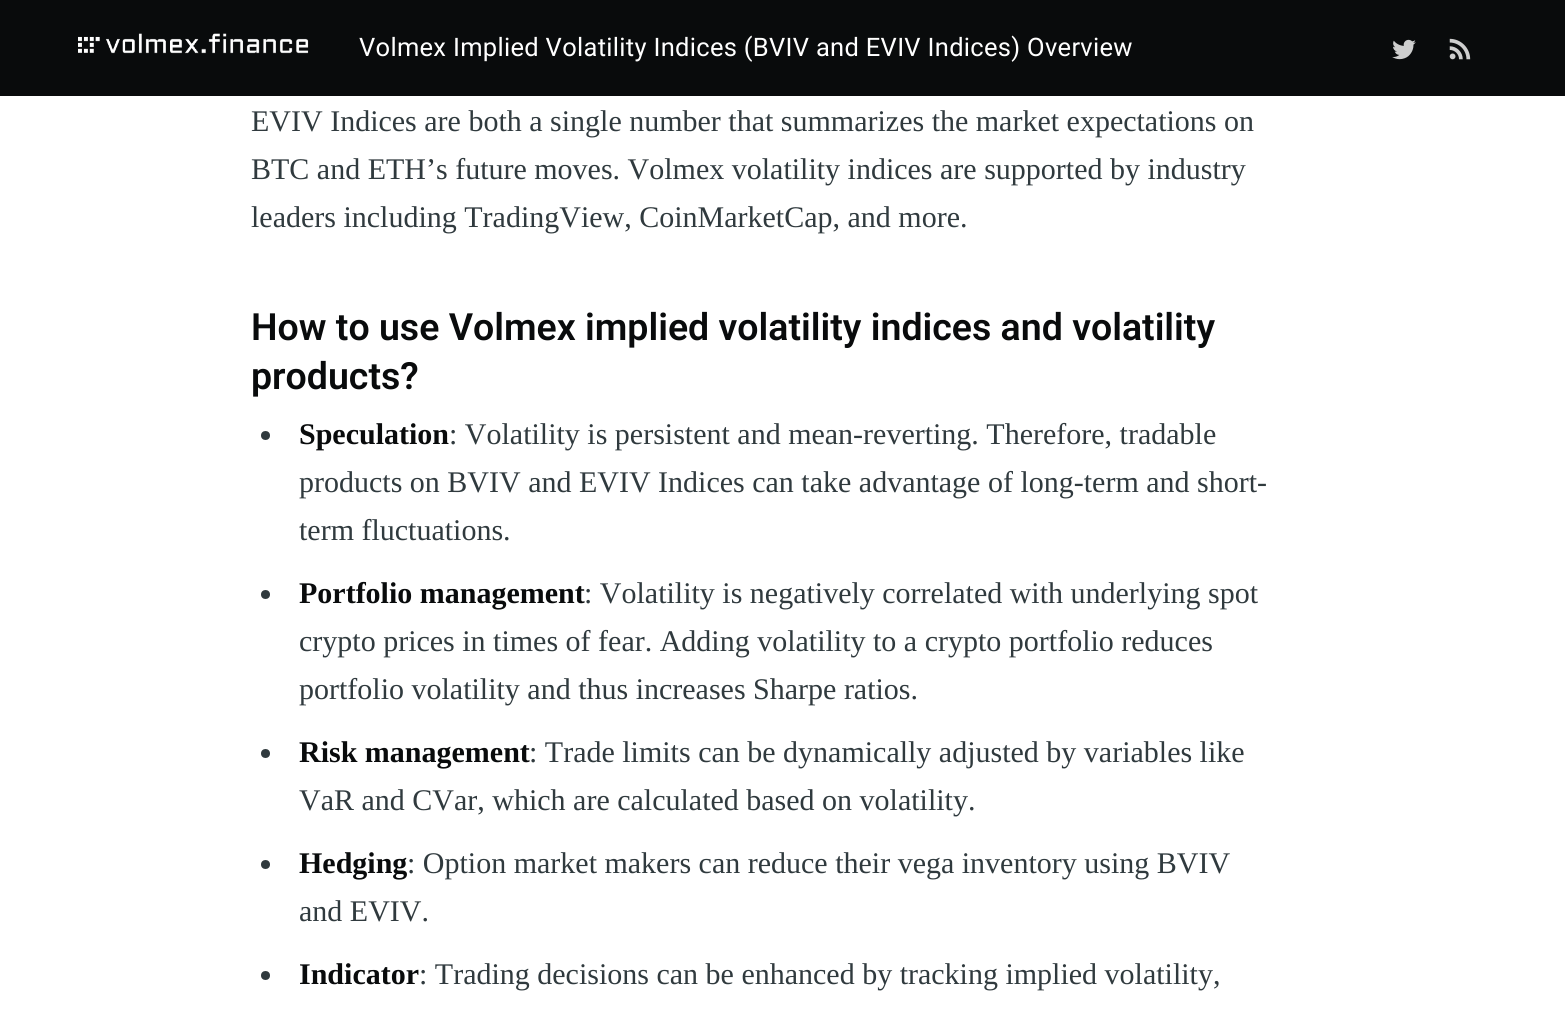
import math
import cairo


def write_spaced(ctx, x, y, s, letter, word):
	ctx.move_to(x, y)
	for ch in s:
		ctx.show_text(ch)
		ctx.rel_move_to(letter + word * (ch == ' '), 0)

def paste(ctx, path, x, y, w, h):
	ctx.save()
	ctx.set_source_surface(cairo.ImageSurface.create_from_png(path), x, y)
	ctx.rectangle(x, y, w, h)
	ctx.fill()
	ctx.restore()

def draw(ctx):
	ctx.set_source_rgb(1, 1, 1)
	ctx.paint()
	ctx.set_source_rgb(0.039, 0.043, 0.047)
	ctx.rectangle(0, 0, 1565, 96)
	ctx.fill()
	paste(ctx, 'media/1.png', 78, 33, 231, 21)
	ctx.select_font_face('Roboto')
	ctx.set_font_size(25.5)
	ctx.set_source_rgb(1, 1, 1)
	write_spaced(ctx, 359, 56, 'Volmex Implied Volatility Indices (BVIV and EVIV Indices) Overview', 0.3, 0)
	paste(ctx, 'media/2.png', 1392, 39, 24, 21)
	paste(ctx, 'media/3.png', 1449, 38, 22, 22)
	ctx.select_font_face('Liberation Serif')
	ctx.set_font_size(30)
	ctx.set_source_rgb(0.188, 0.227, 0.243)
	for x, y, s in [
		(251, 131, 'EVIV Indices are both a single number that summarizes the market expectations on'),
		(251, 179, 'BTC and ETH’s future moves. Volmex volatility indices are supported by industry'),
		(251, 227, 'leaders including TradingView, CoinMarketCap, and more.'),
	]:
		ctx.move_to(x, y)
		ctx.show_text(s)
	ctx.select_font_face('Roboto SemiBold')
	ctx.set_font_size(37.5)
	ctx.set_source_rgb(0.039, 0.043, 0.047)
	ctx.move_to(251, 340)
	ctx.show_text('How to use Volmex implied volatility indices and volatility')
	ctx.move_to(251, 389)
	ctx.show_text('products?')
	ctx.set_source_rgb(0.188, 0.227, 0.243)
	ctx.new_path()
	ctx.arc(265.5, 435.5, 4.5, 0, 2 * math.pi)
	ctx.fill()
	ctx.select_font_face('Liberation Serif', cairo.FONT_SLANT_NORMAL, cairo.FONT_WEIGHT_BOLD)
	ctx.set_font_size(30)
	ctx.set_source_rgb(0.039, 0.043, 0.047)
	ctx.move_to(299, 444)
	ctx.show_text('Speculation')
	ctx.select_font_face('Liberation Serif')
	ctx.set_source_rgb(0.188, 0.227, 0.243)
	for x, y, s in [
		(449, 444, ': Volatility is persistent and mean-reverting. Therefore, tradable'),
		(299, 492, 'products on BVIV and EVIV Indices can take advantage of long-term and short-'),
		(299, 540, 'term fluctuations.'),
	]:
		ctx.move_to(x, y)
		ctx.show_text(s)
	ctx.new_path()
	ctx.arc(265.5, 594.5, 4.5, 0, 2 * math.pi)
	ctx.fill()
	ctx.select_font_face('Liberation Serif', cairo.FONT_SLANT_NORMAL, cairo.FONT_WEIGHT_BOLD)
	ctx.set_source_rgb(0.039, 0.043, 0.047)
	ctx.move_to(299, 603)
	ctx.show_text('Portfolio management')
	ctx.select_font_face('Liberation Serif')
	ctx.set_source_rgb(0.188, 0.227, 0.243)
	for x, y, s in [
		(584, 603, ': Volatility is negatively correlated with underlying spot'),
		(299, 651, 'crypto prices in times of fear. Adding volatility to a crypto portfolio reduces'),
		(299, 699, 'portfolio volatility and thus increases Sharpe ratios.'),
	]:
		ctx.move_to(x, y)
		ctx.show_text(s)
	ctx.new_path()
	ctx.arc(265.5, 753.5, 4.5, 0, 2 * math.pi)
	ctx.fill()
	ctx.select_font_face('Liberation Serif', cairo.FONT_SLANT_NORMAL, cairo.FONT_WEIGHT_BOLD)
	ctx.set_source_rgb(0.039, 0.043, 0.047)
	ctx.move_to(299, 762)
	ctx.show_text('Risk management')
	ctx.select_font_face('Liberation Serif')
	ctx.set_source_rgb(0.188, 0.227, 0.243)
	ctx.move_to(529, 762)
	ctx.show_text(': Trade limits can be dynamically adjusted by variables like')
	ctx.move_to(299, 810)
	ctx.show_text('VaR and CVar, which are calculated based on volatility.')
	ctx.new_path()
	ctx.arc(265.5, 864.5, 4.5, 0, 2 * math.pi)
	ctx.fill()
	ctx.select_font_face('Liberation Serif', cairo.FONT_SLANT_NORMAL, cairo.FONT_WEIGHT_BOLD)
	ctx.set_source_rgb(0.039, 0.043, 0.047)
	ctx.move_to(299, 873)
	ctx.show_text('Hedging')
	ctx.select_font_face('Liberation Serif')
	ctx.set_source_rgb(0.188, 0.227, 0.243)
	ctx.move_to(407, 873)
	ctx.show_text(': Option market makers can reduce their vega inventory using BVIV')
	ctx.move_to(299, 921)
	ctx.show_text('and EVIV.')
	ctx.new_path()
	ctx.arc(265.5, 975.5, 4.5, 0, 2 * math.pi)
	ctx.fill()
	ctx.select_font_face('Liberation Serif', cairo.FONT_SLANT_NORMAL, cairo.FONT_WEIGHT_BOLD)
	ctx.set_source_rgb(0.039, 0.043, 0.047)
	ctx.move_to(299, 984)
	ctx.show_text('Indicator')
	ctx.select_font_face('Liberation Serif')
	ctx.set_source_rgb(0.188, 0.227, 0.243)
	ctx.move_to(419, 984)
	ctx.show_text(': Trading decisions can be enhanced by tracking implied volatility,')


surface = cairo.ImageSurface(cairo.FORMAT_RGB24, 1565, 1014)
ctx = cairo.Context(surface)
options = cairo.FontOptions()
options.set_hint_metrics(cairo.HINT_METRICS_OFF)
options.set_hint_style(cairo.HINT_STYLE_NONE)
ctx.set_font_options(options)
ctx.set_miter_limit(4)
draw(ctx)
surface.write_to_png('image.png')
